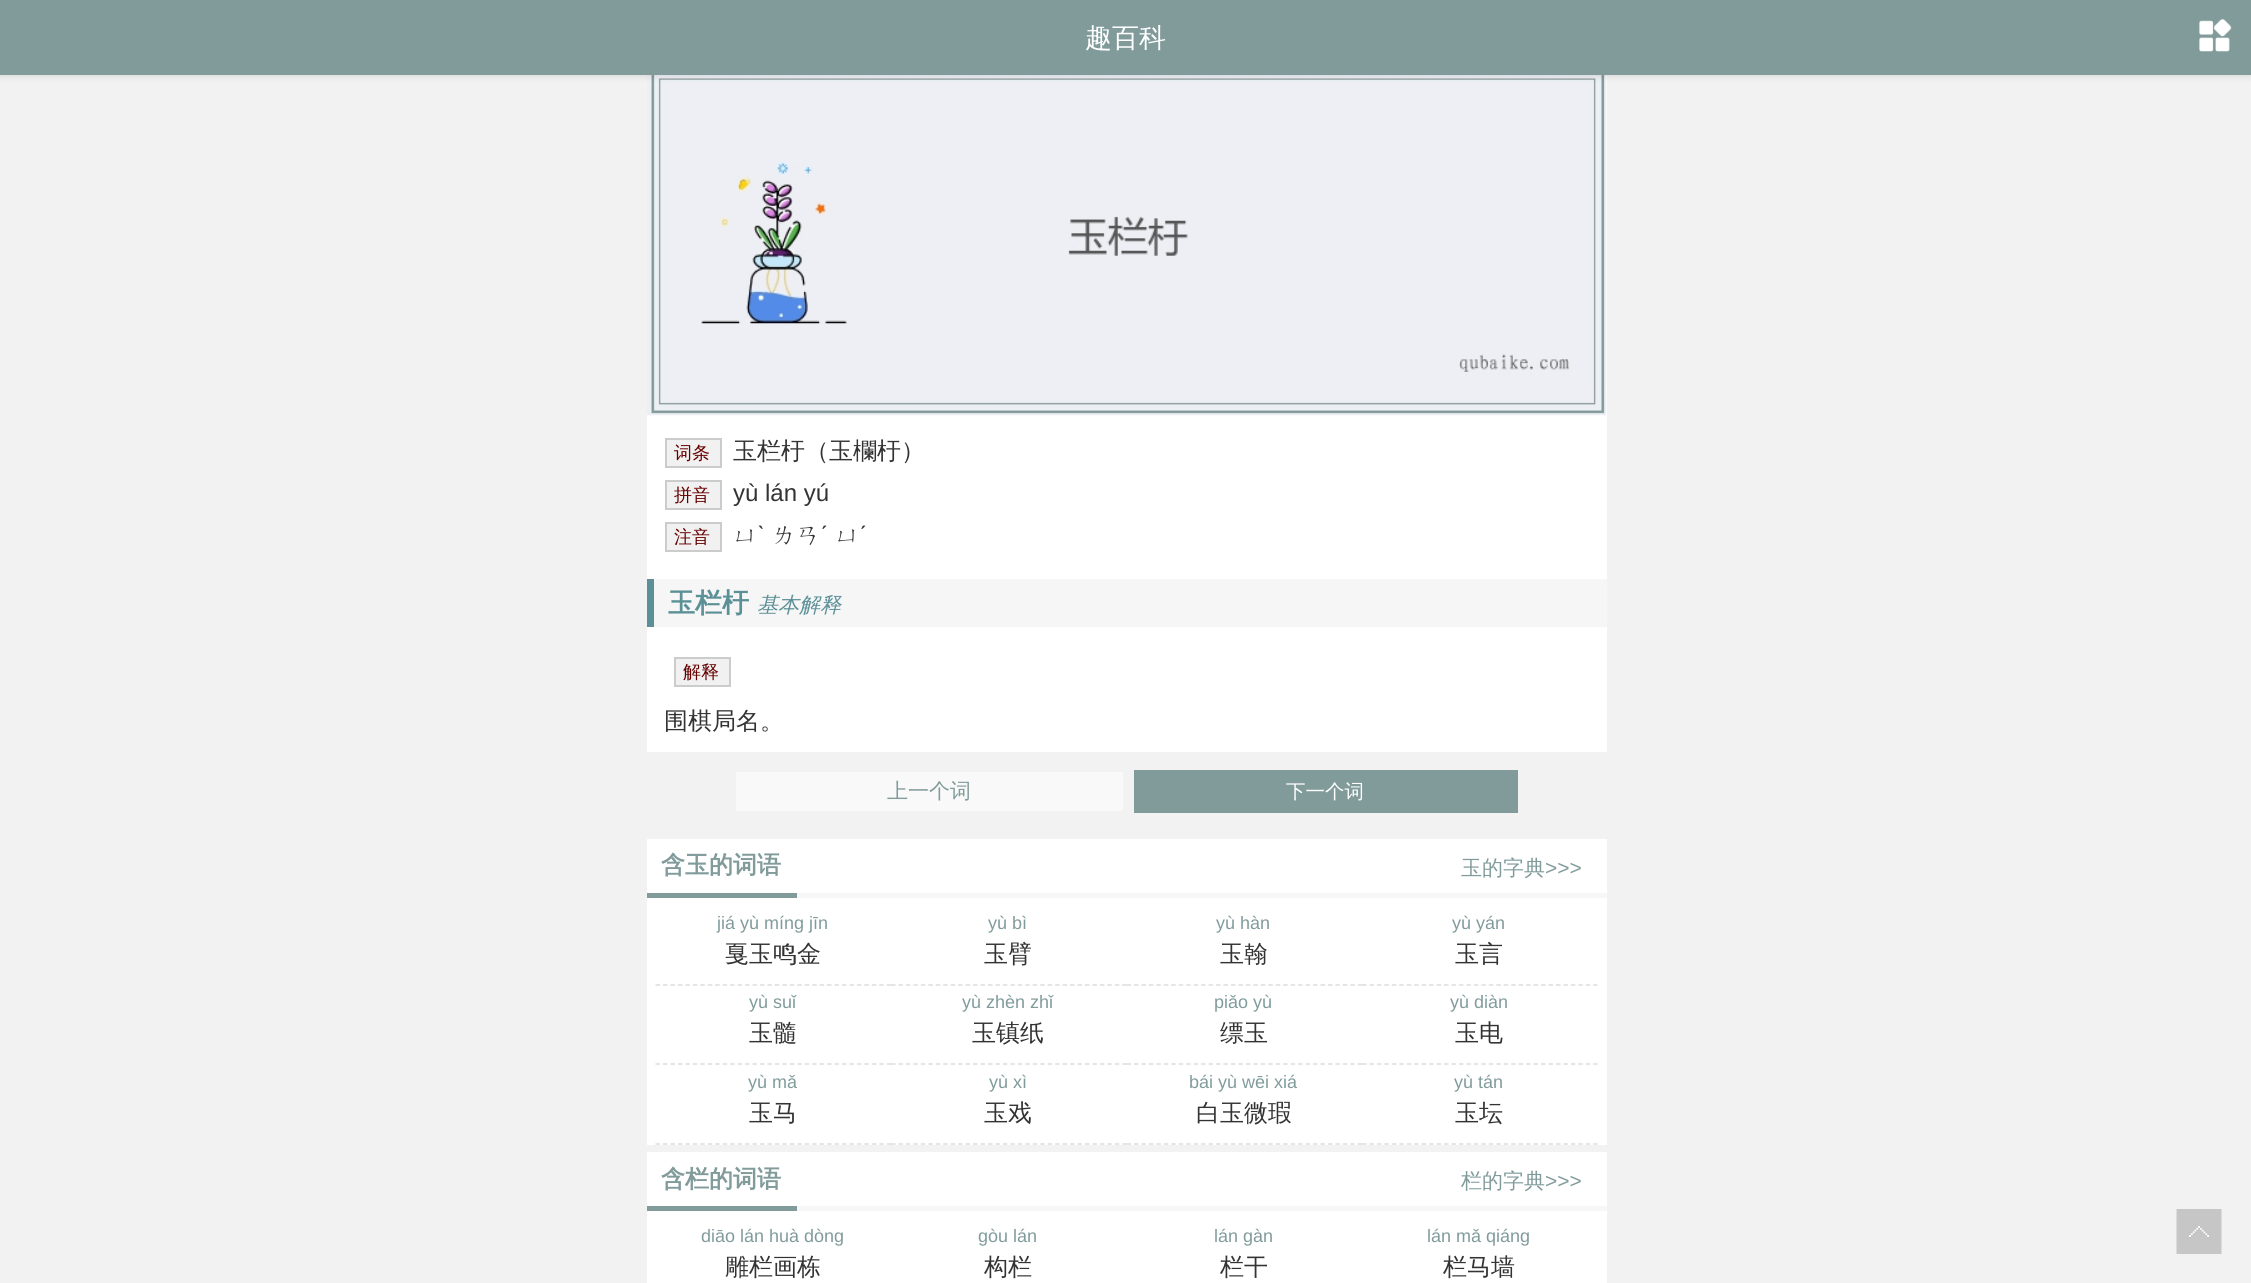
import math
import cairo


def round_path(ctx, x, y, w, h, r):
	ctx.new_sub_path()
	for i, (u, v) in enumerate([(x + w - r, y + h - r), (x + r, y + h - r), (x + r, y + r), (x + w - r, y + r)]):
		ctx.arc(u, v, r, i * math.pi / 2, (i + 1) * math.pi / 2)
	ctx.close_path()

def blur_box(ctx, x, y, w, h, r, blur, alpha):
	ctx.push_group_with_content(cairo.CONTENT_ALPHA)
	ctx.set_operator(cairo.OPERATOR_SOURCE)
	for i in range(15, -16, -2):
		e = blur * i / 6
		if min(w, h) + 2 * e > 0:
			ctx.set_source_rgba(0, 0, 0, alpha * math.erfc((i - 1) / 8.5) / 2)
			round_path(ctx, x - e, y - e, w + 2 * e, h + 2 * e, max(0, min(r + e + blur * .6, min(w, h) / 2 + e)))
			ctx.fill()
	ctx.mask(ctx.pop_group())

def paste(ctx, path, x, y, w, h):
	ctx.save()
	ctx.set_source_surface(cairo.ImageSurface.create_from_png(path), x, y)
	ctx.rectangle(x, y, w, h)
	ctx.fill()
	ctx.restore()

def draw(ctx):
	ctx.set_source_rgb(0.949, 0.949, 0.949)
	ctx.paint()
	ctx.set_source_rgb(1, 1, 1)
	ctx.rectangle(647, 75, 960, 677)
	ctx.fill()
	paste(ctx, 'media/2.png', 646, 75, 961, 341)
	ctx.set_source_rgb(0, 0, 0)
	blur_box(ctx, 0, 2, 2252, 75, 0, 3, 0.1)
	ctx.set_source_rgb(0.506, 0.608, 0.608)
	ctx.rectangle(0, 0, 2251, 75)
	ctx.fill()
	ctx.select_font_face('WenQuanYi Zen Hei Medium')
	ctx.set_font_size(27)
	ctx.set_source_rgb(1, 1, 1)
	ctx.move_to(1085, 47)
	ctx.show_text('趣百科')
	paste(ctx, 'media/1.png', 2199, 18, 33, 34)
	ctx.set_source_rgb(0.945, 0.945, 0.945)
	ctx.rectangle(666, 439, 55, 28)
	ctx.fill_preserve()
	ctx.set_source_rgb(0.8, 0.8, 0.8)
	ctx.stroke()
	ctx.set_font_size(18)
	ctx.set_source_rgb(0.4, 0, 0)
	ctx.move_to(674, 459)
	ctx.show_text('词条')
	ctx.set_font_size(24)
	ctx.set_source_rgb(0.2, 0.2, 0.2)
	ctx.move_to(733, 459)
	ctx.show_text('玉栏杅（玉欄杅）')
	ctx.set_source_rgb(0.945, 0.945, 0.945)
	ctx.rectangle(666, 481, 55, 28)
	ctx.fill_preserve()
	ctx.set_source_rgb(0.8, 0.8, 0.8)
	ctx.stroke()
	ctx.set_font_size(18)
	ctx.set_source_rgb(0.4, 0, 0)
	ctx.move_to(674, 501)
	ctx.show_text('拼音')
	ctx.select_font_face('Liberation Sans')
	ctx.set_font_size(24)
	ctx.set_source_rgb(0.2, 0.2, 0.2)
	ctx.move_to(733, 501)
	ctx.show_text('yù lán yú')
	ctx.set_source_rgb(0.945, 0.945, 0.945)
	ctx.rectangle(666, 523, 55, 28)
	ctx.fill_preserve()
	ctx.set_source_rgb(0.8, 0.8, 0.8)
	ctx.stroke()
	ctx.select_font_face('WenQuanYi Zen Hei Medium')
	ctx.set_font_size(18)
	ctx.set_source_rgb(0.4, 0, 0)
	ctx.move_to(674, 543)
	ctx.show_text('注音')
	ctx.set_font_size(24)
	ctx.set_source_rgb(0.2, 0.2, 0.2)
	ctx.move_to(733, 543)
	ctx.show_text('ㄩ')
	ctx.select_font_face('Liberation Sans')
	ctx.move_to(757, 543)
	ctx.show_text('ˋ')
	ctx.select_font_face('WenQuanYi Zen Hei Medium')
	ctx.move_to(772, 543)
	ctx.show_text('ㄌㄢ')
	ctx.select_font_face('Liberation Sans')
	ctx.move_to(820, 543)
	ctx.show_text('ˊ')
	ctx.select_font_face('WenQuanYi Zen Hei Medium')
	ctx.move_to(835, 543)
	ctx.show_text('ㄩ')
	ctx.select_font_face('Liberation Sans')
	ctx.move_to(859, 543)
	ctx.show_text('ˊ')
	ctx.set_source_rgb(0.961, 0.961, 0.961)
	ctx.rectangle(654, 579, 953, 48)
	ctx.fill()
	ctx.set_source_rgb(0.357, 0.565, 0.592)
	ctx.rectangle(647, 579, 7, 48)
	ctx.fill()
	ctx.select_font_face('WenQuanYi Zen Hei', cairo.FONT_SLANT_NORMAL, cairo.FONT_WEIGHT_BOLD)
	ctx.set_font_size(27)
	ctx.move_to(668, 612)
	ctx.show_text('玉栏杅')
	ctx.select_font_face('WenQuanYi Zen Hei Medium', cairo.FONT_SLANT_ITALIC)
	ctx.set_font_size(21)
	ctx.move_to(757, 612)
	ctx.show_text('基本解释')
	ctx.set_source_rgb(0.945, 0.945, 0.945)
	ctx.rectangle(675, 658, 55, 28)
	ctx.fill_preserve()
	ctx.set_source_rgb(0.8, 0.8, 0.8)
	ctx.stroke()
	ctx.select_font_face('WenQuanYi Zen Hei Medium')
	ctx.set_font_size(18)
	ctx.set_source_rgb(0.4, 0, 0)
	ctx.move_to(683, 678)
	ctx.show_text('解释')
	ctx.set_font_size(24)
	ctx.set_source_rgb(0.2, 0.2, 0.2)
	ctx.move_to(664, 729)
	ctx.show_text('围棋局名。')
	ctx.set_source_rgb(0.976, 0.976, 0.976)
	ctx.rectangle(736, 772, 387, 39)
	ctx.fill()
	ctx.set_font_size(21)
	ctx.set_source_rgb(0.506, 0.608, 0.608)
	ctx.move_to(887, 798)
	ctx.show_text('上一个词')
	ctx.rectangle(1134, 770, 384, 43)
	ctx.fill()
	ctx.set_font_size(19.5)
	ctx.set_source_rgb(1, 1, 1)
	ctx.move_to(1286, 798)
	ctx.show_text('下一个词')
	ctx.rectangle(647, 839, 960, 306)
	ctx.fill()
	ctx.set_source_rgb(0.965, 0.965, 0.965)
	ctx.rectangle(797, 893, 810, 5)
	ctx.fill()
	ctx.set_source_rgb(0.506, 0.608, 0.608)
	ctx.rectangle(647, 893, 150, 5)
	ctx.fill()
	ctx.select_font_face('WenQuanYi Zen Hei', cairo.FONT_SLANT_NORMAL, cairo.FONT_WEIGHT_BOLD)
	ctx.set_font_size(24)
	ctx.move_to(661, 873)
	ctx.show_text('含玉的词语')
	ctx.select_font_face('WenQuanYi Zen Hei Medium')
	ctx.set_font_size(21)
	ctx.move_to(1461, 875)
	ctx.show_text('玉的字典')
	ctx.select_font_face('Liberation Sans')
	ctx.move_to(1545, 875)
	ctx.show_text('>>>')
	ctx.new_path()
	ctx.move_to(655.5, 985)
	ctx.line_to(891, 985)
	ctx.set_source_rgb(0.867, 0.867, 0.867)
	ctx.set_line_width(1.5)
	ctx.set_dash([4.5, 2.96])
	ctx.stroke()
	ctx.set_font_size(18)
	ctx.set_source_rgb(0.506, 0.608, 0.608)
	ctx.move_to(717, 929)
	ctx.show_text('jiá yù míng jīn')
	ctx.select_font_face('WenQuanYi Zen Hei Medium')
	ctx.set_font_size(24)
	ctx.set_source_rgb(0.2, 0.2, 0.2)
	ctx.move_to(725, 962)
	ctx.show_text('戛玉鸣金')
	ctx.new_path()
	ctx.move_to(891, 985)
	ctx.line_to(1126.5, 985)
	ctx.set_source_rgb(0.867, 0.867, 0.867)
	ctx.stroke()
	ctx.select_font_face('Liberation Sans')
	ctx.set_font_size(18)
	ctx.set_source_rgb(0.506, 0.608, 0.608)
	ctx.move_to(988, 929)
	ctx.show_text('yù bì')
	ctx.select_font_face('WenQuanYi Zen Hei Medium')
	ctx.set_font_size(24)
	ctx.set_source_rgb(0.2, 0.2, 0.2)
	ctx.move_to(984, 962)
	ctx.show_text('玉臂')
	ctx.new_path()
	ctx.move_to(1126.5, 985)
	ctx.line_to(1362, 985)
	ctx.set_source_rgb(0.867, 0.867, 0.867)
	ctx.stroke()
	ctx.select_font_face('Liberation Sans')
	ctx.set_font_size(18)
	ctx.set_source_rgb(0.506, 0.608, 0.608)
	ctx.move_to(1216, 929)
	ctx.show_text('yù hàn')
	ctx.select_font_face('WenQuanYi Zen Hei Medium')
	ctx.set_font_size(24)
	ctx.set_source_rgb(0.2, 0.2, 0.2)
	ctx.move_to(1220, 962)
	ctx.show_text('玉翰')
	ctx.new_path()
	ctx.move_to(1362, 985)
	ctx.line_to(1597.5, 985)
	ctx.set_source_rgb(0.867, 0.867, 0.867)
	ctx.stroke()
	ctx.select_font_face('Liberation Sans')
	ctx.set_font_size(18)
	ctx.set_source_rgb(0.506, 0.608, 0.608)
	ctx.move_to(1452, 929)
	ctx.show_text('yù yán')
	ctx.select_font_face('WenQuanYi Zen Hei Medium')
	ctx.set_font_size(24)
	ctx.set_source_rgb(0.2, 0.2, 0.2)
	ctx.move_to(1455, 962)
	ctx.show_text('玉言')
	ctx.new_path()
	ctx.move_to(655.5, 1064)
	ctx.line_to(891, 1064)
	ctx.set_source_rgb(0.867, 0.867, 0.867)
	ctx.stroke()
	ctx.select_font_face('Liberation Sans')
	ctx.set_font_size(18)
	ctx.set_source_rgb(0.506, 0.608, 0.608)
	ctx.move_to(749, 1008)
	ctx.show_text('yù suǐ')
	ctx.select_font_face('WenQuanYi Zen Hei Medium')
	ctx.set_font_size(24)
	ctx.set_source_rgb(0.2, 0.2, 0.2)
	ctx.move_to(749, 1041)
	ctx.show_text('玉髓')
	ctx.new_path()
	ctx.move_to(891, 1064)
	ctx.line_to(1126.5, 1064)
	ctx.set_source_rgb(0.867, 0.867, 0.867)
	ctx.stroke()
	ctx.select_font_face('Liberation Sans')
	ctx.set_font_size(18)
	ctx.set_source_rgb(0.506, 0.608, 0.608)
	ctx.move_to(962, 1008)
	ctx.show_text('yù zhèn zhǐ')
	ctx.select_font_face('WenQuanYi Zen Hei Medium')
	ctx.set_font_size(24)
	ctx.set_source_rgb(0.2, 0.2, 0.2)
	ctx.move_to(972, 1041)
	ctx.show_text('玉镇纸')
	ctx.new_path()
	ctx.move_to(1126.5, 1064)
	ctx.line_to(1362, 1064)
	ctx.set_source_rgb(0.867, 0.867, 0.867)
	ctx.stroke()
	ctx.select_font_face('Liberation Sans')
	ctx.set_font_size(18)
	ctx.set_source_rgb(0.506, 0.608, 0.608)
	ctx.move_to(1214, 1008)
	ctx.show_text('piǎo yù')
	ctx.select_font_face('WenQuanYi Zen Hei Medium')
	ctx.set_font_size(24)
	ctx.set_source_rgb(0.2, 0.2, 0.2)
	ctx.move_to(1220, 1041)
	ctx.show_text('缥玉')
	ctx.new_path()
	ctx.move_to(1362, 1064)
	ctx.line_to(1597.5, 1064)
	ctx.set_source_rgb(0.867, 0.867, 0.867)
	ctx.stroke()
	ctx.select_font_face('Liberation Sans')
	ctx.set_font_size(18)
	ctx.set_source_rgb(0.506, 0.608, 0.608)
	ctx.move_to(1450, 1008)
	ctx.show_text('yù diàn')
	ctx.select_font_face('WenQuanYi Zen Hei Medium')
	ctx.set_font_size(24)
	ctx.set_source_rgb(0.2, 0.2, 0.2)
	ctx.move_to(1455, 1041)
	ctx.show_text('玉电')
	ctx.new_path()
	ctx.move_to(655.5, 1144)
	ctx.line_to(891, 1144)
	ctx.set_source_rgb(0.867, 0.867, 0.867)
	ctx.stroke()
	ctx.select_font_face('Liberation Sans')
	ctx.set_font_size(18)
	ctx.set_source_rgb(0.506, 0.608, 0.608)
	ctx.move_to(748, 1088)
	ctx.show_text('yù mǎ')
	ctx.select_font_face('WenQuanYi Zen Hei Medium')
	ctx.set_font_size(24)
	ctx.set_source_rgb(0.2, 0.2, 0.2)
	ctx.move_to(749, 1121)
	ctx.show_text('玉马')
	ctx.new_path()
	ctx.move_to(891, 1144)
	ctx.line_to(1126.5, 1144)
	ctx.set_source_rgb(0.867, 0.867, 0.867)
	ctx.stroke()
	ctx.select_font_face('Liberation Sans')
	ctx.set_font_size(18)
	ctx.set_source_rgb(0.506, 0.608, 0.608)
	ctx.move_to(989, 1088)
	ctx.show_text('yù xì')
	ctx.select_font_face('WenQuanYi Zen Hei Medium')
	ctx.set_font_size(24)
	ctx.set_source_rgb(0.2, 0.2, 0.2)
	ctx.move_to(984, 1121)
	ctx.show_text('玉戏')
	ctx.new_path()
	ctx.move_to(1126.5, 1144)
	ctx.line_to(1362, 1144)
	ctx.set_source_rgb(0.867, 0.867, 0.867)
	ctx.stroke()
	ctx.select_font_face('Liberation Sans')
	ctx.set_font_size(18)
	ctx.set_source_rgb(0.506, 0.608, 0.608)
	ctx.move_to(1189, 1088)
	ctx.show_text('bái yù wēi xiá')
	ctx.select_font_face('WenQuanYi Zen Hei Medium')
	ctx.set_font_size(24)
	ctx.set_source_rgb(0.2, 0.2, 0.2)
	ctx.move_to(1196, 1121)
	ctx.show_text('白玉微瑕')
	ctx.new_path()
	ctx.move_to(1362, 1144)
	ctx.line_to(1597.5, 1144)
	ctx.set_source_rgb(0.867, 0.867, 0.867)
	ctx.stroke()
	ctx.select_font_face('Liberation Sans')
	ctx.set_font_size(18)
	ctx.set_source_rgb(0.506, 0.608, 0.608)
	ctx.move_to(1454, 1088)
	ctx.show_text('yù tán')
	ctx.select_font_face('WenQuanYi Zen Hei Medium')
	ctx.set_font_size(24)
	ctx.set_source_rgb(0.2, 0.2, 0.2)
	ctx.move_to(1455, 1121)
	ctx.show_text('玉坛')
	ctx.set_source_rgb(1, 1, 1)
	ctx.rectangle(647, 1152, 960, 131)
	ctx.fill()
	ctx.set_source_rgb(0.965, 0.965, 0.965)
	ctx.rectangle(797, 1206, 810, 5)
	ctx.fill()
	ctx.set_source_rgb(0.506, 0.608, 0.608)
	ctx.rectangle(647, 1206, 150, 5)
	ctx.fill()
	ctx.select_font_face('WenQuanYi Zen Hei', cairo.FONT_SLANT_NORMAL, cairo.FONT_WEIGHT_BOLD)
	ctx.move_to(661, 1187)
	ctx.show_text('含栏的词语')
	ctx.select_font_face('WenQuanYi Zen Hei Medium')
	ctx.set_font_size(21)
	ctx.move_to(1461, 1188)
	ctx.show_text('栏的字典')
	ctx.select_font_face('Liberation Sans')
	ctx.move_to(1545, 1188)
	ctx.show_text('>>>')
	ctx.set_font_size(18)
	ctx.move_to(701, 1242)
	ctx.show_text('diāo lán huà dòng')
	ctx.select_font_face('WenQuanYi Zen Hei Medium')
	ctx.set_font_size(24)
	ctx.set_source_rgb(0.2, 0.2, 0.2)
	ctx.move_to(725, 1275)
	ctx.show_text('雕栏画栋')
	ctx.select_font_face('Liberation Sans')
	ctx.set_font_size(18)
	ctx.set_source_rgb(0.506, 0.608, 0.608)
	ctx.move_to(978, 1242)
	ctx.show_text('gòu lán')
	ctx.select_font_face('WenQuanYi Zen Hei Medium')
	ctx.set_font_size(24)
	ctx.set_source_rgb(0.2, 0.2, 0.2)
	ctx.move_to(984, 1275)
	ctx.show_text('构栏')
	ctx.select_font_face('Liberation Sans')
	ctx.set_font_size(18)
	ctx.set_source_rgb(0.506, 0.608, 0.608)
	ctx.move_to(1214, 1242)
	ctx.show_text('lán gàn')
	ctx.select_font_face('WenQuanYi Zen Hei Medium')
	ctx.set_font_size(24)
	ctx.set_source_rgb(0.2, 0.2, 0.2)
	ctx.move_to(1220, 1275)
	ctx.show_text('栏干')
	ctx.select_font_face('Liberation Sans')
	ctx.set_font_size(18)
	ctx.set_source_rgb(0.506, 0.608, 0.608)
	ctx.move_to(1427, 1242)
	ctx.show_text('lán mǎ qiáng')
	ctx.select_font_face('WenQuanYi Zen Hei Medium')
	ctx.set_font_size(24)
	ctx.set_source_rgb(0.2, 0.2, 0.2)
	ctx.move_to(1443, 1275)
	ctx.show_text('栏马墙')
	paste(ctx, 'media/3.png', 2176, 1209, 46, 45)


surface = cairo.ImageSurface(cairo.FORMAT_RGB24, 2251, 1283)
ctx = cairo.Context(surface)
options = cairo.FontOptions()
options.set_hint_metrics(cairo.HINT_METRICS_OFF)
options.set_hint_style(cairo.HINT_STYLE_NONE)
ctx.set_font_options(options)
ctx.set_miter_limit(4)
draw(ctx)
surface.write_to_png('image.png')
